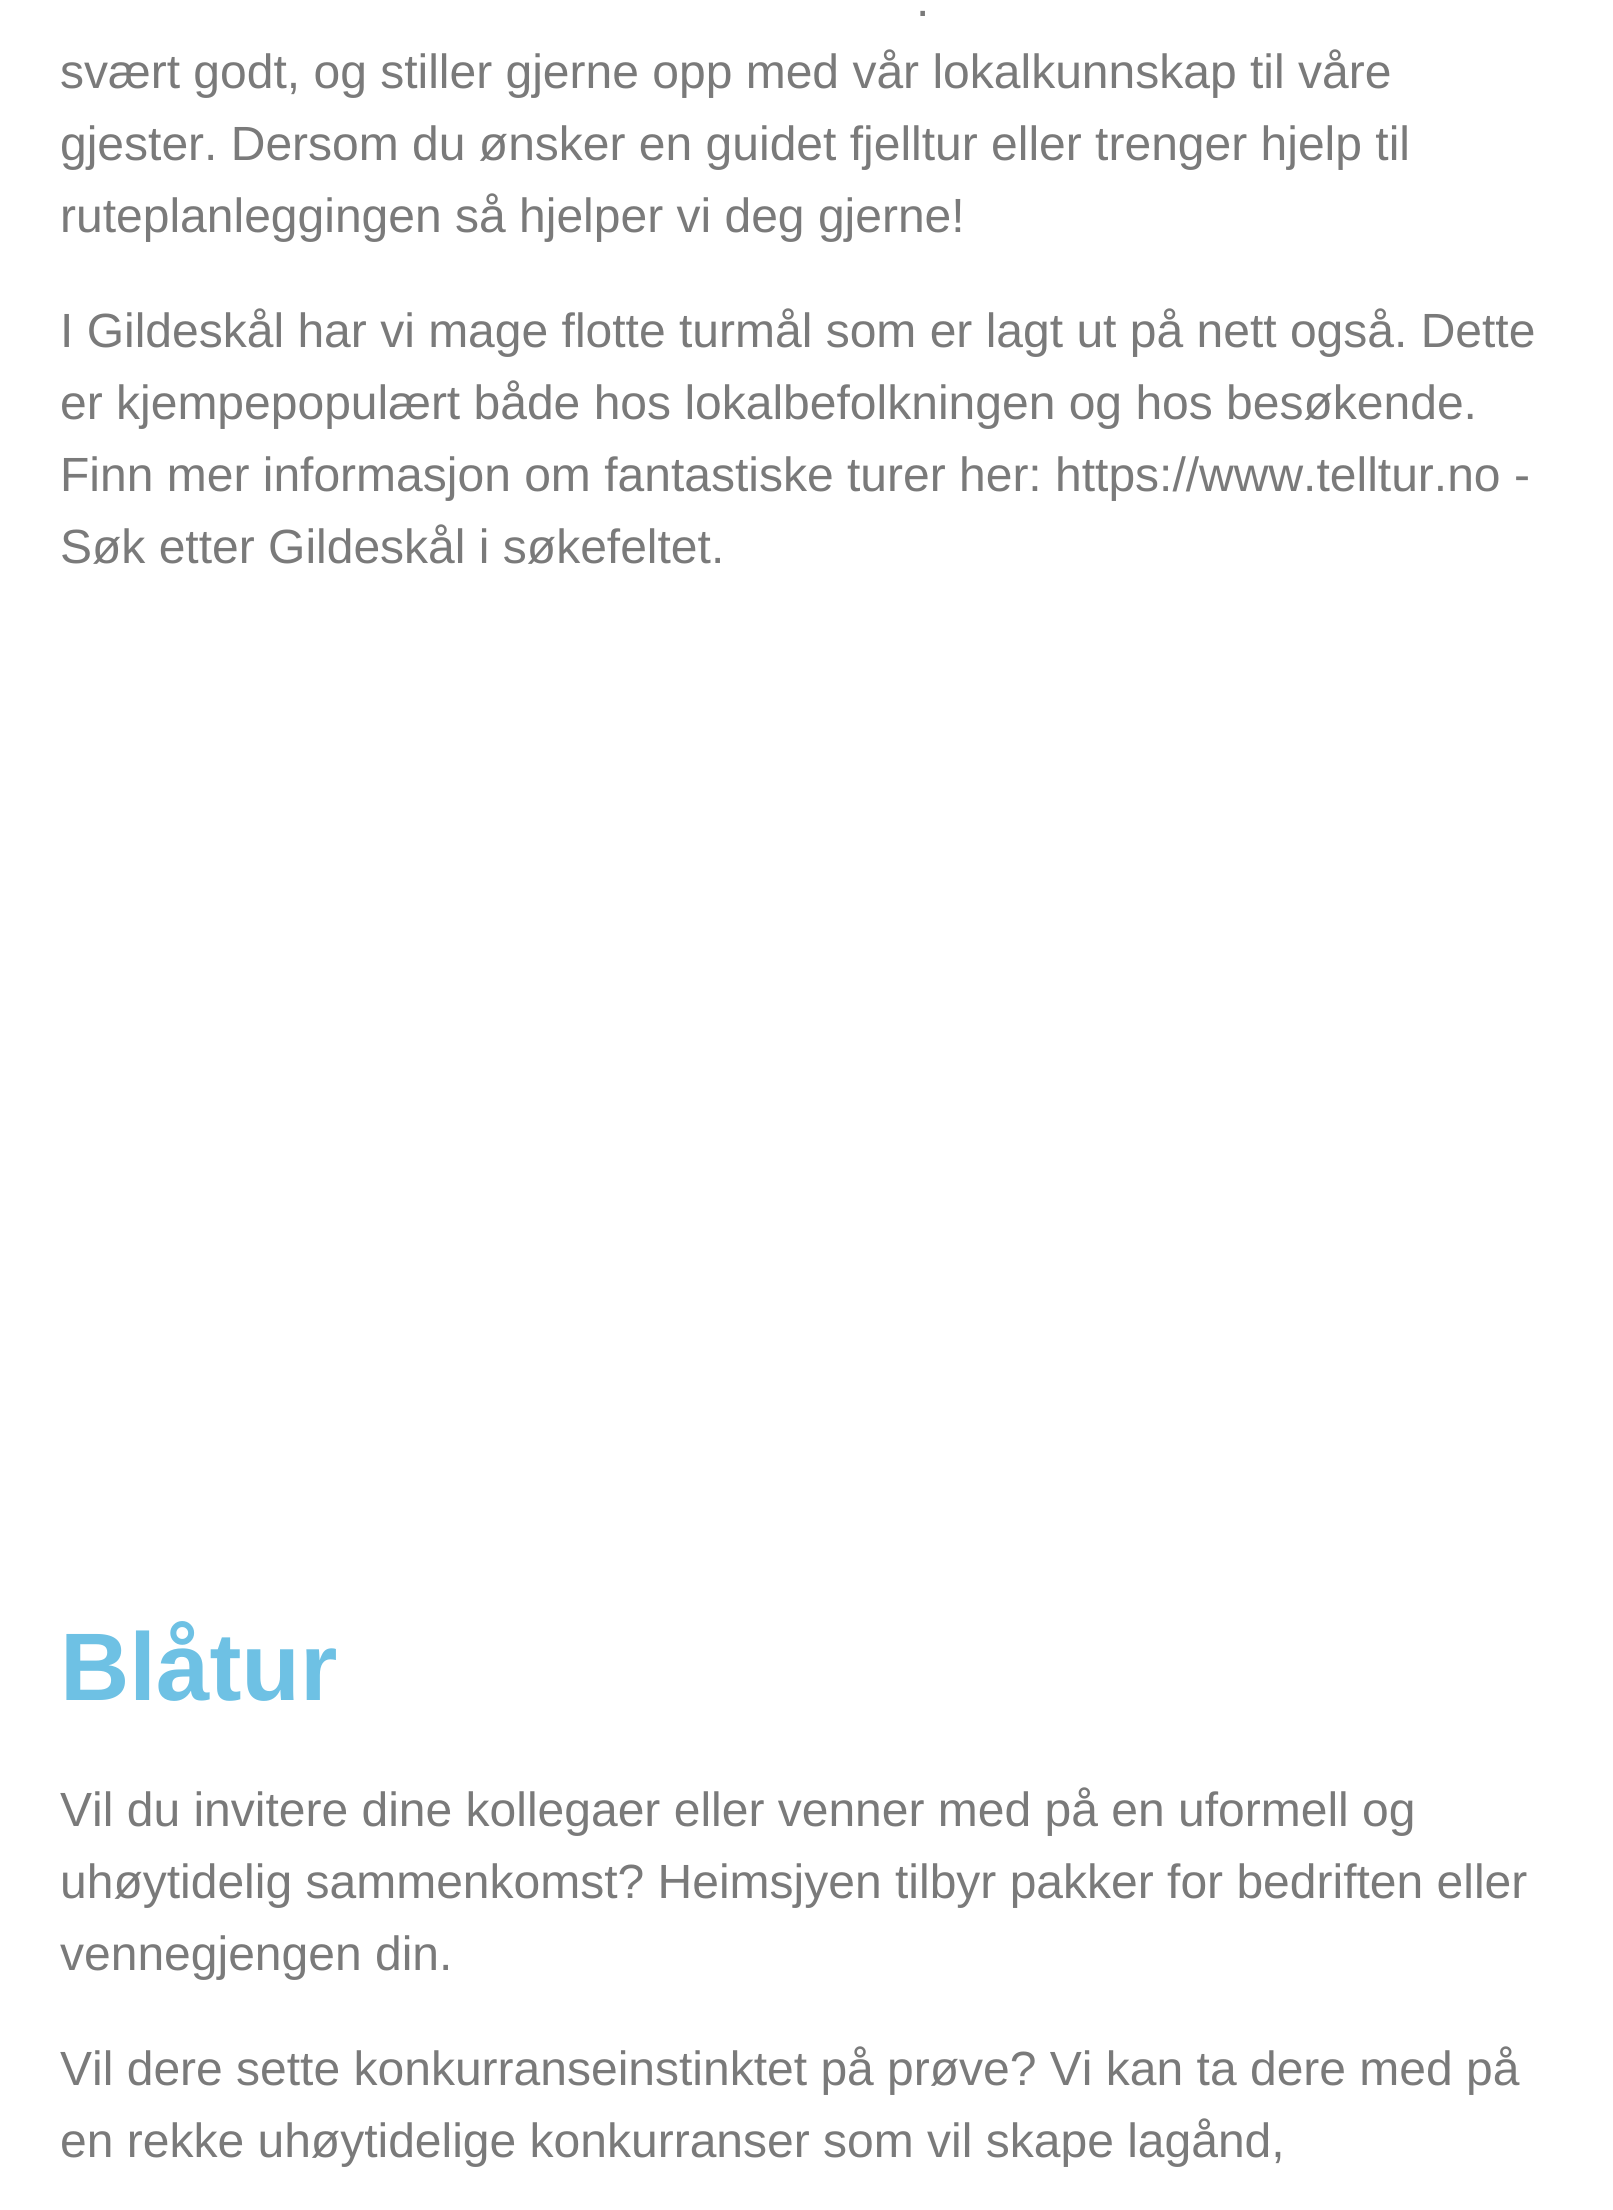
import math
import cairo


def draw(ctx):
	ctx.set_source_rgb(1, 1, 1)
	ctx.paint()
	ctx.select_font_face('Liberation Sans')
	ctx.set_font_size(48)
	ctx.set_source_rgb(0.478, 0.478, 0.478)
	for x, y, s in [
		(916, 16, '.'),
		(60, 88, 'svært godt, og stiller gjerne opp med vår lokalkunnskap til våre'),
		(60, 160, 'gjester. Dersom du ønsker en guidet fjelltur eller trenger hjelp til'),
		(60, 232, 'ruteplanleggingen så hjelper vi deg gjerne!'),
		(60, 347, 'I Gildeskål har vi mage flotte turmål som er lagt ut på nett også. Dette'),
		(60, 419, 'er kjempepopulært både hos lokalbefolkningen og hos besøkende.'),
		(60, 491, 'Finn mer informasjon om fantastiske turer her: https://www.telltur.no -'),
		(60, 563, 'Søk etter Gildeskål i søkefeltet.'),
	]:
		ctx.move_to(x, y)
		ctx.show_text(s)
	ctx.select_font_face('Liberation Sans', cairo.FONT_SLANT_NORMAL, cairo.FONT_WEIGHT_BOLD)
	ctx.set_font_size(96)
	ctx.set_source_rgb(0.431, 0.757, 0.894)
	ctx.move_to(60, 1700)
	ctx.show_text('Blåtur')
	ctx.select_font_face('Liberation Sans')
	ctx.set_font_size(48)
	ctx.set_source_rgb(0.478, 0.478, 0.478)
	for x, y, s in [
		(60, 1826, 'Vil du invitere dine kollegaer eller venner med på en uformell og'),
		(60, 1898, 'uhøytidelig sammenkomst? Heimsjyen tilbyr pakker for bedriften eller'),
		(60, 1970, 'vennegjengen din.'),
		(60, 2085, 'Vil dere sette konkurranseinstinktet på prøve? Vi kan ta dere med på'),
		(60, 2157, 'en rekke uhøytidelige konkurranser som vil skape lagånd,'),
	]:
		ctx.move_to(x, y)
		ctx.show_text(s)


surface = cairo.ImageSurface(cairo.FORMAT_RGB24, 1613, 2210)
ctx = cairo.Context(surface)
options = cairo.FontOptions()
options.set_hint_metrics(cairo.HINT_METRICS_OFF)
options.set_hint_style(cairo.HINT_STYLE_NONE)
ctx.set_font_options(options)
ctx.set_miter_limit(4)
draw(ctx)
surface.write_to_png('image.png')
